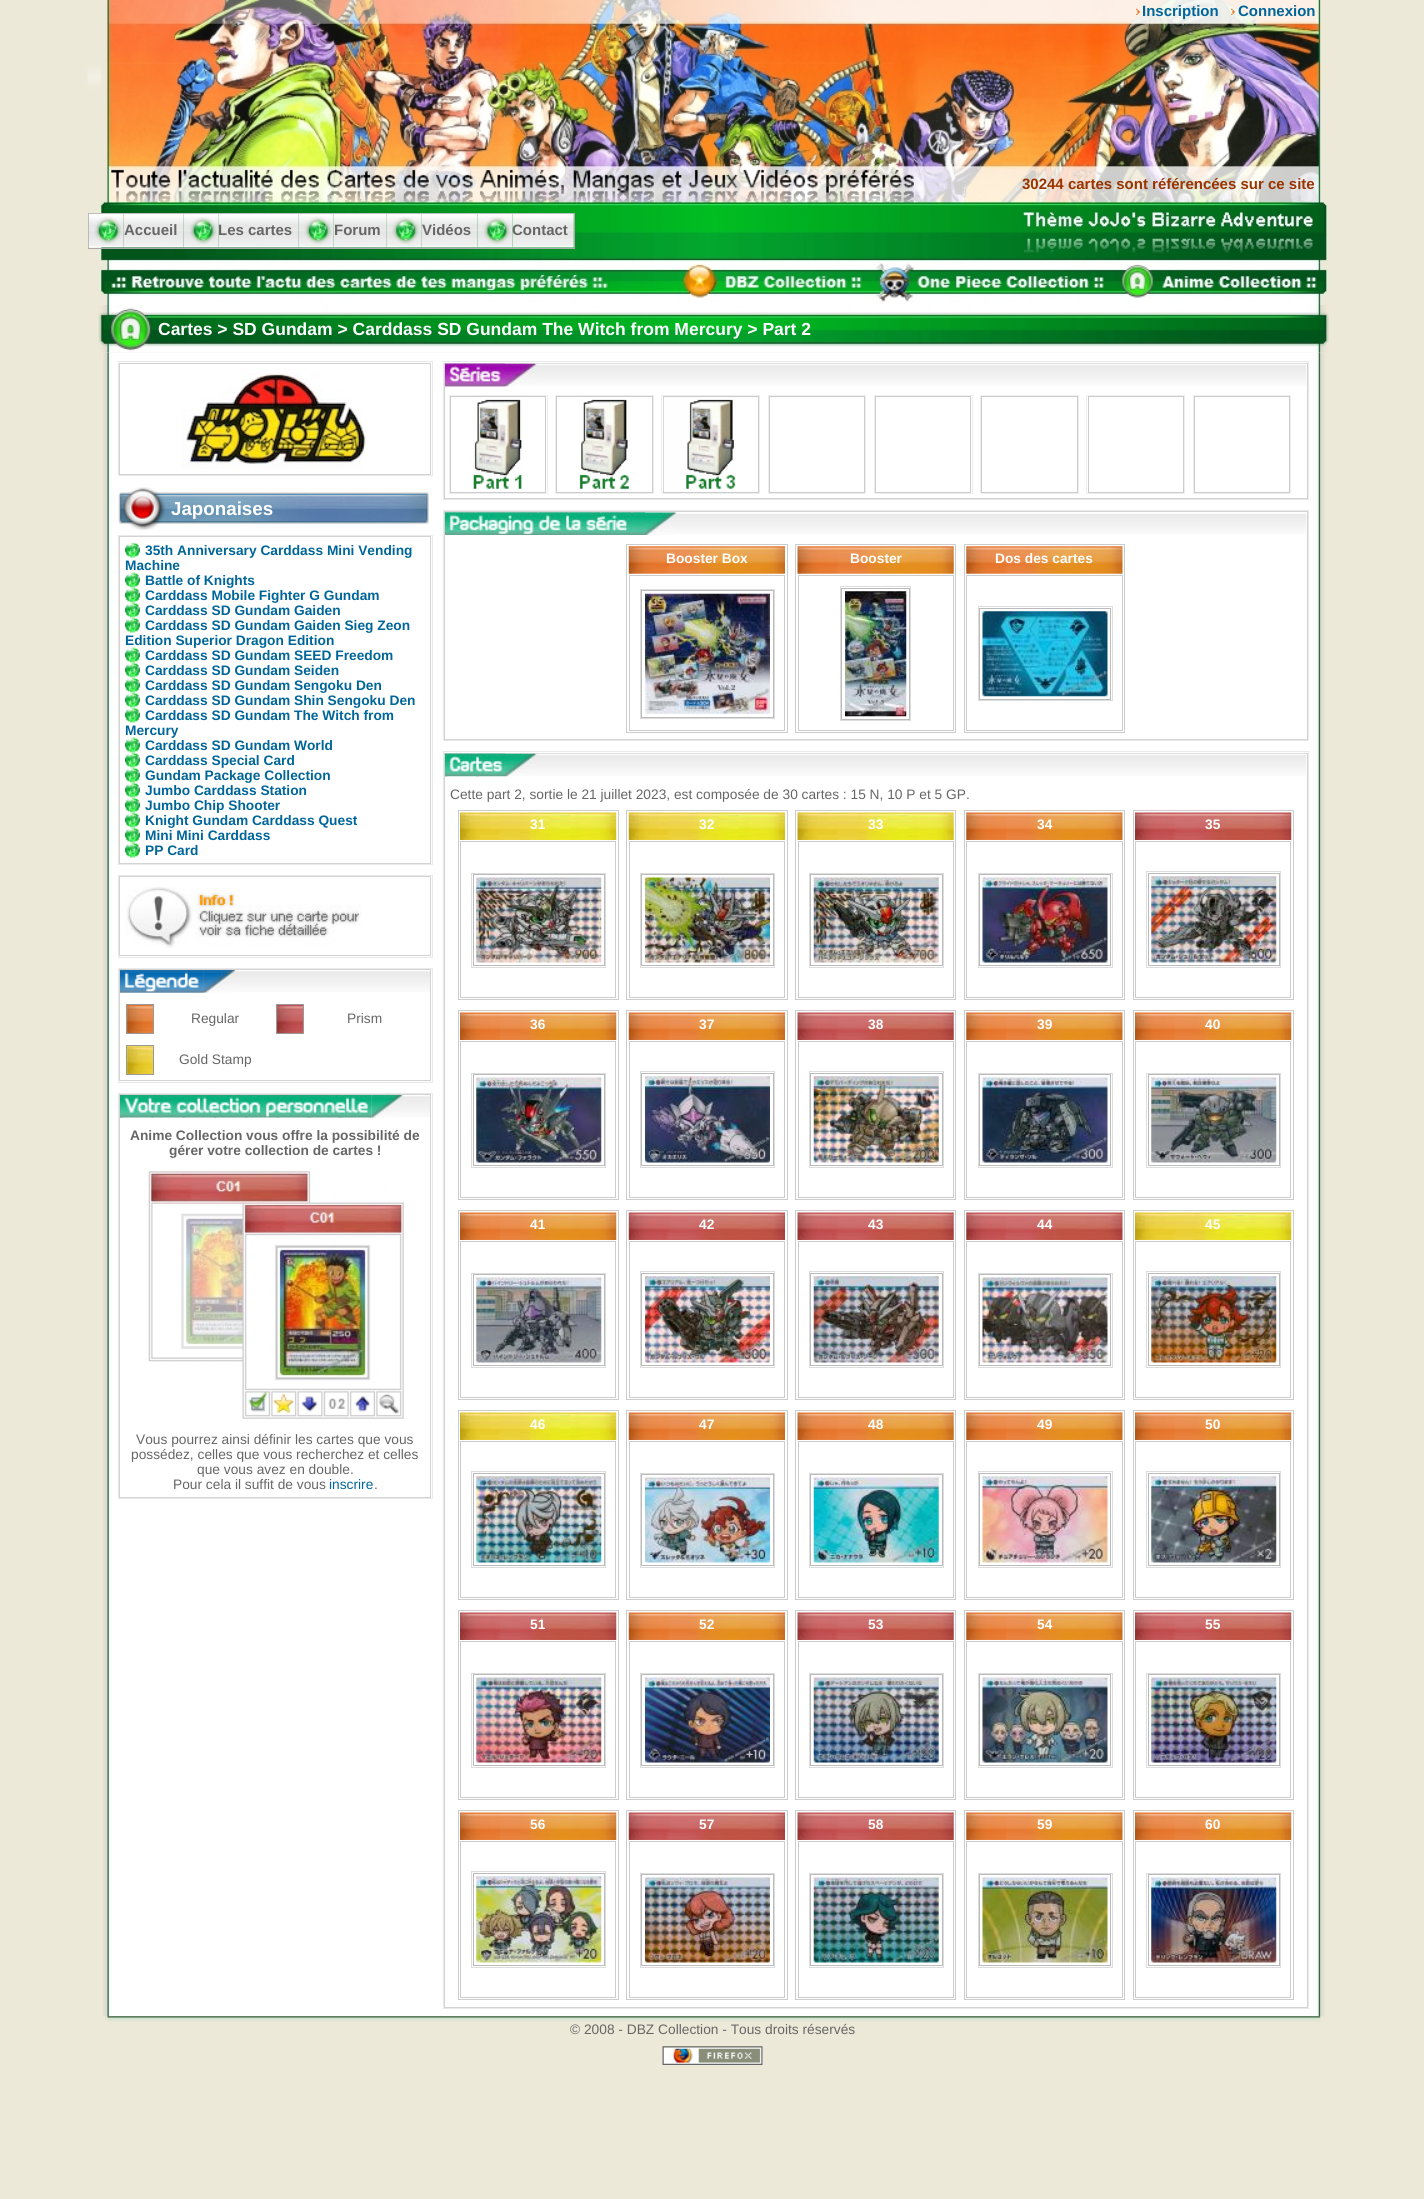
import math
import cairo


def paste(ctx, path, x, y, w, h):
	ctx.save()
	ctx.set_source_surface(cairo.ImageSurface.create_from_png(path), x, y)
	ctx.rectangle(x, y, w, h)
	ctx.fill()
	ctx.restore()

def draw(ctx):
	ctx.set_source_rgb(0.925, 0.914, 0.847)
	ctx.paint()
	paste(ctx, 'media/1.png', 87, 0, 1242, 263)
	paste(ctx, 'media/2.png', 1136, 8, 4, 7)
	ctx.select_font_face('Liberation Sans', cairo.FONT_SLANT_NORMAL, cairo.FONT_WEIGHT_BOLD)
	ctx.set_font_size(15)
	ctx.set_source_rgb(0, 0.4, 0.6)
	ctx.move_to(1142, 16)
	ctx.show_text('Inscription')
	paste(ctx, 'media/3.png', 1231, 8, 4, 7)
	ctx.move_to(1238, 16)
	ctx.show_text('Connexion')
	ctx.set_source_rgb(0.6, 0.2, 0)
	ctx.move_to(1022, 189)
	ctx.show_text('30244 cartes sont référencées sur ce site')
	ctx.rectangle(88.5, 213.5, 486, 35)
	ctx.set_source_rgb(0.667, 0.667, 0.667)
	ctx.set_line_width(1)
	ctx.stroke()
	paste(ctx, 'media/4.png', 88, 213, 36, 35)
	paste(ctx, 'media/5.png', 123, 213, 61, 35)
	ctx.set_source_rgb(0.4, 0.4, 0.4)
	ctx.move_to(124, 235)
	ctx.show_text('Accueil')
	paste(ctx, 'media/6.png', 183, 213, 36, 35)
	paste(ctx, 'media/7.png', 218, 213, 81, 35)
	ctx.move_to(218, 235)
	ctx.show_text('Les cartes')
	paste(ctx, 'media/8.png', 298, 213, 36, 35)
	paste(ctx, 'media/9.png', 333, 213, 54, 35)
	ctx.move_to(334, 235)
	ctx.show_text('Forum')
	paste(ctx, 'media/10.png', 386, 213, 36, 35)
	paste(ctx, 'media/11.png', 421, 213, 57, 35)
	ctx.move_to(422, 235)
	ctx.show_text('Vidéos')
	paste(ctx, 'media/12.png', 477, 213, 36, 35)
	paste(ctx, 'media/13.png', 512, 213, 62, 35)
	ctx.move_to(512, 235)
	ctx.show_text('Contact')
	paste(ctx, 'media/14.png', 99, 262, 1230, 43)
	paste(ctx, 'media/15.png', 107, 262, 1214, 1)
	paste(ctx, 'media/16.png', 98, 305, 1231, 48)
	ctx.set_font_size(17.5)
	ctx.set_source_rgb(1, 1, 1)
	ctx.move_to(158, 335)
	ctx.show_text('Cartes > SD Gundam > Carddass SD Gundam The Witch from Mercury > Part 2')
	paste(ctx, 'media/17.png', 103, 352, 1222, 1665)
	ctx.rectangle(118.5, 361.5, 314, 114)
	ctx.set_source_rgb(0.914, 0.914, 0.914)
	ctx.stroke()
	ctx.rectangle(119.5, 363.5, 311, 111)
	ctx.set_source_rgb(0.827, 0.827, 0.827)
	ctx.stroke()
	paste(ctx, 'media/18.png', 181, 369, 185, 100)
	paste(ctx, 'media/19.png', 118, 487, 311, 43)
	ctx.set_font_size(18.75)
	ctx.set_source_rgb(1, 1, 1)
	ctx.move_to(171, 515)
	ctx.show_text('Japonaises')
	ctx.rectangle(118.5, 535.5, 314, 329)
	ctx.set_source_rgb(0.914, 0.914, 0.914)
	ctx.stroke()
	ctx.rectangle(119.5, 536.5, 311, 327)
	ctx.set_source_rgb(0.827, 0.827, 0.827)
	ctx.stroke()
	paste(ctx, 'media/20.png', 125, 543, 15, 15)
	ctx.set_font_size(13.75)
	ctx.set_source_rgb(0, 0.4, 0.6)
	ctx.move_to(145, 555)
	ctx.show_text('35th Anniversary Carddass Mini Vending')
	ctx.move_to(125, 570)
	ctx.show_text('Machine')
	paste(ctx, 'media/21.png', 125, 572, 15, 16)
	ctx.move_to(145, 585)
	ctx.show_text('Battle of Knights')
	paste(ctx, 'media/22.png', 125, 587, 15, 16)
	ctx.move_to(145, 600)
	ctx.show_text('Carddass Mobile Fighter G Gundam')
	paste(ctx, 'media/23.png', 125, 602, 15, 16)
	ctx.move_to(145, 615)
	ctx.show_text('Carddass SD Gundam Gaiden')
	paste(ctx, 'media/20.png', 125, 618, 15, 15)
	ctx.move_to(145, 630)
	ctx.show_text('Carddass SD Gundam Gaiden Sieg Zeon')
	ctx.move_to(125, 645)
	ctx.show_text('Edition Superior Dragon Edition')
	paste(ctx, 'media/21.png', 125, 647, 15, 16)
	ctx.move_to(145, 660)
	ctx.show_text('Carddass SD Gundam SEED Freedom')
	paste(ctx, 'media/23.png', 125, 662, 15, 16)
	ctx.move_to(145, 675)
	ctx.show_text('Carddass SD Gundam Seiden')
	paste(ctx, 'media/23.png', 125, 677, 15, 16)
	ctx.move_to(145, 690)
	ctx.show_text('Carddass SD Gundam Sengoku Den')
	paste(ctx, 'media/23.png', 125, 692, 15, 16)
	ctx.move_to(145, 705)
	ctx.show_text('Carddass SD Gundam Shin Sengoku Den')
	paste(ctx, 'media/20.png', 125, 708, 15, 15)
	ctx.move_to(145, 720)
	ctx.show_text('Carddass SD Gundam The Witch from')
	ctx.move_to(125, 735)
	ctx.show_text('Mercury')
	paste(ctx, 'media/21.png', 125, 737, 15, 16)
	ctx.move_to(145, 750)
	ctx.show_text('Carddass SD Gundam World')
	paste(ctx, 'media/23.png', 125, 752, 15, 16)
	ctx.move_to(145, 765)
	ctx.show_text('Carddass Special Card')
	paste(ctx, 'media/23.png', 125, 767, 15, 16)
	ctx.move_to(145, 780)
	ctx.show_text('Gundam Package Collection')
	paste(ctx, 'media/23.png', 125, 782, 15, 16)
	ctx.move_to(145, 795)
	ctx.show_text('Jumbo Carddass Station')
	paste(ctx, 'media/23.png', 125, 797, 15, 16)
	ctx.move_to(145, 810)
	ctx.show_text('Jumbo Chip Shooter')
	paste(ctx, 'media/23.png', 125, 812, 15, 16)
	ctx.move_to(145, 825)
	ctx.show_text('Knight Gundam Carddass Quest')
	paste(ctx, 'media/23.png', 125, 827, 15, 16)
	ctx.move_to(145, 840)
	ctx.show_text('Mini Mini Carddass')
	paste(ctx, 'media/23.png', 125, 842, 15, 16)
	ctx.move_to(145, 855)
	ctx.show_text('PP Card')
	ctx.rectangle(118.5, 875.5, 314, 82)
	ctx.set_source_rgb(0.914, 0.914, 0.914)
	ctx.stroke()
	ctx.rectangle(119.5, 876.5, 311, 79)
	ctx.set_source_rgb(0.827, 0.827, 0.827)
	ctx.stroke()
	paste(ctx, 'media/24.png', 125, 887, 236, 61)
	ctx.rectangle(118.5, 968.5, 314, 114)
	ctx.set_source_rgb(0.914, 0.914, 0.914)
	ctx.stroke()
	ctx.rectangle(119.5, 969.5, 311, 111)
	ctx.set_source_rgb(0.827, 0.827, 0.827)
	ctx.stroke()
	paste(ctx, 'media/25.png', 203, 971, 227, 21)
	paste(ctx, 'media/26.png', 120, 970, 84, 23)
	paste(ctx, 'media/27.png', 120, 970, 84, 23)
	paste(ctx, 'media/28.png', 203, 970, 32, 23)
	paste(ctx, 'media/29.png', 127, 1005, 26, 28)
	ctx.rectangle(126.5, 1004.5, 27, 29)
	ctx.set_source_rgb(0.6, 0.6, 0.6)
	ctx.stroke()
	ctx.select_font_face('Liberation Sans')
	ctx.set_source_rgb(0.4, 0.4, 0.4)
	ctx.move_to(191, 1023)
	ctx.show_text('Regular')
	paste(ctx, 'media/30.png', 277, 1005, 26, 28)
	ctx.rectangle(276.5, 1004.5, 27, 29)
	ctx.set_source_rgb(0.6, 0.6, 0.6)
	ctx.stroke()
	ctx.set_source_rgb(0.4, 0.4, 0.4)
	ctx.move_to(347, 1023)
	ctx.show_text('Prism')
	paste(ctx, 'media/31.png', 127, 1046, 26, 28)
	ctx.rectangle(126.5, 1045.5, 27, 29)
	ctx.set_source_rgb(0.6, 0.6, 0.6)
	ctx.stroke()
	ctx.set_source_rgb(0.4, 0.4, 0.4)
	ctx.move_to(179, 1064)
	ctx.show_text('Gold Stamp')
	ctx.rectangle(118.5, 1093.5, 314, 405)
	ctx.set_source_rgb(0.914, 0.914, 0.914)
	ctx.stroke()
	ctx.rectangle(119.5, 1094.5, 311, 403)
	ctx.set_source_rgb(0.827, 0.827, 0.827)
	ctx.stroke()
	paste(ctx, 'media/32.png', 371, 1096, 59, 21)
	paste(ctx, 'media/33.png', 120, 1095, 252, 23)
	paste(ctx, 'media/34.png', 120, 1095, 252, 23)
	paste(ctx, 'media/35.png', 371, 1095, 32, 23)
	ctx.select_font_face('Liberation Sans', cairo.FONT_SLANT_NORMAL, cairo.FONT_WEIGHT_BOLD)
	ctx.set_source_rgb(0.4, 0.4, 0.4)
	ctx.move_to(130, 1140)
	ctx.show_text('Anime Collection vous offre la possibilité de')
	ctx.move_to(169, 1155)
	ctx.show_text('gérer votre collection de cartes !')
	paste(ctx, 'media/36.png', 148, 1171, 256, 248)
	ctx.select_font_face('Liberation Sans')
	for x, y, s in [
		(136, 1444, 'Vous pourrez ainsi définir les cartes que vous'),
		(131, 1459, 'possédez, celles que vous recherchez et celles'),
		(197, 1474, 'que vous avez en double.'),
		(173, 1489, 'Pour cela il suffit de vous'),
	]:
		ctx.move_to(x, y)
		ctx.show_text(s)
	ctx.set_source_rgb(0, 0.4, 0.6)
	ctx.move_to(329, 1489)
	ctx.show_text('inscrire')
	ctx.set_source_rgb(0.4, 0.4, 0.4)
	ctx.move_to(374, 1489)
	ctx.show_text('.')
	ctx.rectangle(443.5, 361.5, 865, 138)
	ctx.set_source_rgb(0.914, 0.914, 0.914)
	ctx.stroke()
	ctx.rectangle(444.5, 363.5, 863, 135)
	ctx.set_source_rgb(0.827, 0.827, 0.827)
	ctx.stroke()
	paste(ctx, 'media/37.png', 445, 363, 862, 23)
	paste(ctx, 'media/38.png', 445, 363, 60, 24)
	paste(ctx, 'media/39.png', 445, 363, 60, 24)
	paste(ctx, 'media/40.png', 505, 363, 32, 24)
	ctx.rectangle(449.5, 395.5, 98, 98)
	ctx.set_source_rgb(0.933, 0.933, 0.933)
	ctx.stroke()
	ctx.rectangle(450.5, 396.5, 95, 96)
	ctx.set_source_rgb(0.8, 0.8, 0.8)
	ctx.stroke()
	paste(ctx, 'media/41.png', 473, 399, 49, 90)
	ctx.rectangle(555.5, 395.5, 98, 98)
	ctx.set_source_rgb(0.933, 0.933, 0.933)
	ctx.stroke()
	ctx.rectangle(556.5, 396.5, 96, 96)
	ctx.set_source_rgb(0.8, 0.8, 0.8)
	ctx.stroke()
	paste(ctx, 'media/42.png', 579, 399, 50, 90)
	ctx.rectangle(661.5, 395.5, 98, 98)
	ctx.set_source_rgb(0.933, 0.933, 0.933)
	ctx.stroke()
	ctx.rectangle(663.5, 396.5, 95, 96)
	ctx.set_source_rgb(0.8, 0.8, 0.8)
	ctx.stroke()
	paste(ctx, 'media/43.png', 663, 397, 73, 94)
	ctx.rectangle(768.5, 395.5, 97, 98)
	ctx.set_source_rgb(0.933, 0.933, 0.933)
	ctx.stroke()
	ctx.rectangle(769.5, 396.5, 95, 96)
	ctx.set_source_rgb(0.8, 0.8, 0.8)
	ctx.stroke()
	ctx.rectangle(874.5, 395.5, 98, 98)
	ctx.set_source_rgb(0.933, 0.933, 0.933)
	ctx.stroke()
	ctx.rectangle(875.5, 396.5, 95, 96)
	ctx.set_source_rgb(0.8, 0.8, 0.8)
	ctx.stroke()
	ctx.rectangle(980.5, 395.5, 98, 98)
	ctx.set_source_rgb(0.933, 0.933, 0.933)
	ctx.stroke()
	ctx.rectangle(981.5, 396.5, 96, 96)
	ctx.set_source_rgb(0.8, 0.8, 0.8)
	ctx.stroke()
	ctx.rectangle(1086.5, 395.5, 98, 98)
	ctx.set_source_rgb(0.933, 0.933, 0.933)
	ctx.stroke()
	ctx.rectangle(1088.5, 396.5, 95, 96)
	ctx.set_source_rgb(0.8, 0.8, 0.8)
	ctx.stroke()
	ctx.rectangle(1193.5, 395.5, 97, 98)
	ctx.set_source_rgb(0.933, 0.933, 0.933)
	ctx.stroke()
	ctx.rectangle(1194.5, 396.5, 95, 96)
	ctx.set_source_rgb(0.8, 0.8, 0.8)
	ctx.stroke()
	ctx.rectangle(443.5, 510.5, 865, 230)
	ctx.set_source_rgb(0.914, 0.914, 0.914)
	ctx.stroke()
	ctx.rectangle(444.5, 511.5, 863, 228)
	ctx.set_source_rgb(0.827, 0.827, 0.827)
	ctx.stroke()
	paste(ctx, 'media/44.png', 676, 513, 631, 21)
	paste(ctx, 'media/45.png', 445, 512, 200, 1)
	paste(ctx, 'media/46.png', 445, 512, 200, 23)
	paste(ctx, 'media/47.png', 645, 512, 32, 23)
	ctx.rectangle(626.5, 544.5, 161, 188)
	ctx.set_source_rgb(0.8, 0.8, 0.8)
	ctx.stroke()
	paste(ctx, 'media/48.png', 628, 546, 157, 28)
	ctx.select_font_face('Liberation Sans', cairo.FONT_SLANT_NORMAL, cairo.FONT_WEIGHT_BOLD)
	ctx.set_source_rgb(1, 1, 1)
	ctx.move_to(666, 563)
	ctx.show_text('Booster Box')
	ctx.rectangle(629.5, 575.5, 155, 155)
	ctx.set_source_rgb(0.8, 0.8, 0.8)
	ctx.stroke()
	ctx.rectangle(640.5, 589.5, 134, 129)
	ctx.set_source_rgb(0.867, 0.867, 0.867)
	ctx.stroke()
	ctx.rectangle(641.5, 590.5, 132, 127)
	ctx.set_source_rgb(0.733, 0.733, 0.733)
	ctx.stroke()
	paste(ctx, 'media/49.png', 645, 593, 125, 121)
	ctx.rectangle(795.5, 544.5, 160, 188)
	ctx.set_source_rgb(0.8, 0.8, 0.8)
	ctx.stroke()
	paste(ctx, 'media/50.png', 797, 546, 157, 28)
	ctx.set_source_rgb(1, 1, 1)
	ctx.move_to(850, 563)
	ctx.show_text('Booster')
	ctx.rectangle(798.5, 575.5, 155, 155)
	ctx.set_source_rgb(0.8, 0.8, 0.8)
	ctx.stroke()
	ctx.rectangle(840.5, 586.5, 70, 134)
	ctx.set_source_rgb(0.867, 0.867, 0.867)
	ctx.stroke()
	ctx.rectangle(841.5, 588.5, 68, 131)
	ctx.set_source_rgb(0.733, 0.733, 0.733)
	ctx.stroke()
	paste(ctx, 'media/51.png', 845, 591, 62, 126)
	ctx.rectangle(964.5, 544.5, 160, 188)
	ctx.set_source_rgb(0.8, 0.8, 0.8)
	ctx.stroke()
	paste(ctx, 'media/52.png', 966, 546, 157, 28)
	ctx.set_source_rgb(1, 1, 1)
	ctx.move_to(995, 563)
	ctx.show_text('Dos des cartes')
	ctx.rectangle(966.5, 575.5, 156, 155)
	ctx.set_source_rgb(0.8, 0.8, 0.8)
	ctx.stroke()
	ctx.rectangle(978.5, 606.5, 134, 94)
	ctx.set_source_rgb(0.867, 0.867, 0.867)
	ctx.stroke()
	ctx.rectangle(979.5, 608.5, 131, 91)
	ctx.set_source_rgb(0.733, 0.733, 0.733)
	ctx.stroke()
	paste(ctx, 'media/53.png', 982, 611, 126, 86)
	ctx.rectangle(443.5, 751.5, 865, 1257)
	ctx.set_source_rgb(0.914, 0.914, 0.914)
	ctx.stroke()
	ctx.rectangle(444.5, 753.5, 863, 1254)
	ctx.set_source_rgb(0.827, 0.827, 0.827)
	ctx.stroke()
	paste(ctx, 'media/37.png', 445, 753, 862, 23)
	paste(ctx, 'media/54.png', 445, 753, 60, 24)
	paste(ctx, 'media/55.png', 445, 753, 60, 24)
	paste(ctx, 'media/56.png', 505, 753, 32, 24)
	ctx.select_font_face('Liberation Sans')
	ctx.set_source_rgb(0.4, 0.4, 0.4)
	ctx.move_to(450, 799)
	ctx.show_text('Cette part 2, sortie le 21 juillet 2023, est composée de 30 cartes : 15 N, 10 P et 5 GP.')
	ctx.rectangle(458.5, 810.5, 160, 189)
	ctx.set_source_rgb(0.8, 0.8, 0.8)
	ctx.stroke()
	paste(ctx, 'media/57.png', 460, 812, 157, 28)
	ctx.select_font_face('Liberation Sans', cairo.FONT_SLANT_NORMAL, cairo.FONT_WEIGHT_BOLD)
	ctx.set_source_rgb(1, 1, 1)
	ctx.move_to(530, 829)
	ctx.show_text('31')
	ctx.rectangle(460.5, 841.5, 155, 156)
	ctx.set_source_rgb(0.8, 0.8, 0.8)
	ctx.stroke()
	ctx.rectangle(471.5, 873.5, 134, 94)
	ctx.set_source_rgb(0.867, 0.867, 0.867)
	ctx.stroke()
	ctx.rectangle(473.5, 874.5, 131, 91)
	ctx.set_source_rgb(0.733, 0.733, 0.733)
	ctx.stroke()
	paste(ctx, 'media/58.png', 476, 877, 126, 86)
	ctx.rectangle(626.5, 810.5, 161, 189)
	ctx.set_source_rgb(0.8, 0.8, 0.8)
	ctx.stroke()
	paste(ctx, 'media/59.png', 628, 812, 157, 28)
	ctx.set_source_rgb(1, 1, 1)
	ctx.move_to(699, 829)
	ctx.show_text('32')
	ctx.rectangle(629.5, 841.5, 155, 156)
	ctx.set_source_rgb(0.8, 0.8, 0.8)
	ctx.stroke()
	ctx.rectangle(640.5, 873.5, 134, 94)
	ctx.set_source_rgb(0.867, 0.867, 0.867)
	ctx.stroke()
	ctx.rectangle(641.5, 874.5, 132, 91)
	ctx.set_source_rgb(0.733, 0.733, 0.733)
	ctx.stroke()
	paste(ctx, 'media/60.png', 645, 877, 125, 86)
	ctx.rectangle(795.5, 810.5, 160, 189)
	ctx.set_source_rgb(0.8, 0.8, 0.8)
	ctx.stroke()
	paste(ctx, 'media/61.png', 797, 812, 157, 28)
	ctx.set_source_rgb(1, 1, 1)
	ctx.move_to(868, 829)
	ctx.show_text('33')
	ctx.rectangle(798.5, 841.5, 155, 156)
	ctx.set_source_rgb(0.8, 0.8, 0.8)
	ctx.stroke()
	ctx.rectangle(809.5, 873.5, 134, 94)
	ctx.set_source_rgb(0.867, 0.867, 0.867)
	ctx.stroke()
	ctx.rectangle(810.5, 874.5, 132, 91)
	ctx.set_source_rgb(0.733, 0.733, 0.733)
	ctx.stroke()
	paste(ctx, 'media/62.png', 813, 877, 126, 86)
	ctx.rectangle(964.5, 810.5, 160, 189)
	ctx.set_source_rgb(0.8, 0.8, 0.8)
	ctx.stroke()
	paste(ctx, 'media/63.png', 966, 812, 157, 28)
	ctx.set_source_rgb(1, 1, 1)
	ctx.move_to(1037, 829)
	ctx.show_text('34')
	ctx.rectangle(966.5, 841.5, 156, 156)
	ctx.set_source_rgb(0.8, 0.8, 0.8)
	ctx.stroke()
	ctx.rectangle(978.5, 873.5, 134, 94)
	ctx.set_source_rgb(0.867, 0.867, 0.867)
	ctx.stroke()
	ctx.rectangle(979.5, 874.5, 131, 91)
	ctx.set_source_rgb(0.733, 0.733, 0.733)
	ctx.stroke()
	paste(ctx, 'media/64.png', 982, 877, 126, 86)
	ctx.rectangle(1133.5, 810.5, 160, 189)
	ctx.set_source_rgb(0.8, 0.8, 0.8)
	ctx.stroke()
	paste(ctx, 'media/65.png', 1135, 812, 157, 28)
	ctx.set_source_rgb(1, 1, 1)
	ctx.move_to(1205, 829)
	ctx.show_text('35')
	ctx.rectangle(1135.5, 841.5, 155, 156)
	ctx.set_source_rgb(0.8, 0.8, 0.8)
	ctx.stroke()
	ctx.rectangle(1146.5, 871.5, 134, 96)
	ctx.set_source_rgb(0.867, 0.867, 0.867)
	ctx.stroke()
	ctx.rectangle(1148.5, 873.5, 131, 92)
	ctx.set_source_rgb(0.733, 0.733, 0.733)
	ctx.stroke()
	paste(ctx, 'media/66.png', 1151, 876, 126, 87)
	ctx.rectangle(458.5, 1010.5, 160, 189)
	ctx.set_source_rgb(0.8, 0.8, 0.8)
	ctx.stroke()
	paste(ctx, 'media/67.png', 460, 1012, 157, 28)
	ctx.set_source_rgb(1, 1, 1)
	ctx.move_to(530, 1029)
	ctx.show_text('36')
	ctx.rectangle(460.5, 1041.5, 155, 156)
	ctx.set_source_rgb(0.8, 0.8, 0.8)
	ctx.stroke()
	ctx.rectangle(471.5, 1073.5, 134, 94)
	ctx.set_source_rgb(0.867, 0.867, 0.867)
	ctx.stroke()
	ctx.rectangle(473.5, 1074.5, 131, 91)
	ctx.set_source_rgb(0.733, 0.733, 0.733)
	ctx.stroke()
	paste(ctx, 'media/68.png', 476, 1077, 126, 86)
	ctx.rectangle(626.5, 1010.5, 161, 189)
	ctx.set_source_rgb(0.8, 0.8, 0.8)
	ctx.stroke()
	paste(ctx, 'media/69.png', 628, 1012, 157, 28)
	ctx.set_source_rgb(1, 1, 1)
	ctx.move_to(699, 1029)
	ctx.show_text('37')
	ctx.rectangle(629.5, 1041.5, 155, 156)
	ctx.set_source_rgb(0.8, 0.8, 0.8)
	ctx.stroke()
	ctx.rectangle(640.5, 1071.5, 134, 96)
	ctx.set_source_rgb(0.867, 0.867, 0.867)
	ctx.stroke()
	ctx.rectangle(641.5, 1073.5, 132, 92)
	ctx.set_source_rgb(0.733, 0.733, 0.733)
	ctx.stroke()
	paste(ctx, 'media/70.png', 645, 1076, 125, 87)
	ctx.rectangle(795.5, 1010.5, 160, 189)
	ctx.set_source_rgb(0.8, 0.8, 0.8)
	ctx.stroke()
	paste(ctx, 'media/71.png', 797, 1012, 157, 28)
	ctx.set_source_rgb(1, 1, 1)
	ctx.move_to(868, 1029)
	ctx.show_text('38')
	ctx.rectangle(798.5, 1041.5, 155, 156)
	ctx.set_source_rgb(0.8, 0.8, 0.8)
	ctx.stroke()
	ctx.rectangle(809.5, 1071.5, 134, 96)
	ctx.set_source_rgb(0.867, 0.867, 0.867)
	ctx.stroke()
	ctx.rectangle(810.5, 1073.5, 132, 92)
	ctx.set_source_rgb(0.733, 0.733, 0.733)
	ctx.stroke()
	paste(ctx, 'media/72.png', 813, 1076, 126, 87)
	ctx.rectangle(964.5, 1010.5, 160, 189)
	ctx.set_source_rgb(0.8, 0.8, 0.8)
	ctx.stroke()
	paste(ctx, 'media/63.png', 966, 1012, 157, 28)
	ctx.set_source_rgb(1, 1, 1)
	ctx.move_to(1037, 1029)
	ctx.show_text('39')
	ctx.rectangle(966.5, 1041.5, 156, 156)
	ctx.set_source_rgb(0.8, 0.8, 0.8)
	ctx.stroke()
	ctx.rectangle(978.5, 1073.5, 134, 94)
	ctx.set_source_rgb(0.867, 0.867, 0.867)
	ctx.stroke()
	ctx.rectangle(979.5, 1074.5, 131, 91)
	ctx.set_source_rgb(0.733, 0.733, 0.733)
	ctx.stroke()
	paste(ctx, 'media/73.png', 982, 1077, 126, 86)
	ctx.rectangle(1133.5, 1010.5, 160, 189)
	ctx.set_source_rgb(0.8, 0.8, 0.8)
	ctx.stroke()
	paste(ctx, 'media/74.png', 1135, 1012, 157, 28)
	ctx.set_source_rgb(1, 1, 1)
	ctx.move_to(1205, 1029)
	ctx.show_text('40')
	ctx.rectangle(1135.5, 1041.5, 155, 156)
	ctx.set_source_rgb(0.8, 0.8, 0.8)
	ctx.stroke()
	ctx.rectangle(1146.5, 1073.5, 134, 94)
	ctx.set_source_rgb(0.867, 0.867, 0.867)
	ctx.stroke()
	ctx.rectangle(1148.5, 1074.5, 131, 91)
	ctx.set_source_rgb(0.733, 0.733, 0.733)
	ctx.stroke()
	paste(ctx, 'media/75.png', 1151, 1077, 126, 86)
	ctx.rectangle(458.5, 1210.5, 160, 189)
	ctx.set_source_rgb(0.8, 0.8, 0.8)
	ctx.stroke()
	paste(ctx, 'media/67.png', 460, 1212, 157, 28)
	ctx.set_source_rgb(1, 1, 1)
	ctx.move_to(530, 1229)
	ctx.show_text('41')
	ctx.rectangle(460.5, 1241.5, 155, 156)
	ctx.set_source_rgb(0.8, 0.8, 0.8)
	ctx.stroke()
	ctx.rectangle(471.5, 1273.5, 134, 94)
	ctx.set_source_rgb(0.867, 0.867, 0.867)
	ctx.stroke()
	ctx.rectangle(473.5, 1274.5, 131, 91)
	ctx.set_source_rgb(0.733, 0.733, 0.733)
	ctx.stroke()
	paste(ctx, 'media/76.png', 476, 1277, 126, 86)
	ctx.rectangle(626.5, 1210.5, 161, 189)
	ctx.set_source_rgb(0.8, 0.8, 0.8)
	ctx.stroke()
	paste(ctx, 'media/77.png', 628, 1212, 157, 28)
	ctx.set_source_rgb(1, 1, 1)
	ctx.move_to(699, 1229)
	ctx.show_text('42')
	ctx.rectangle(629.5, 1241.5, 155, 156)
	ctx.set_source_rgb(0.8, 0.8, 0.8)
	ctx.stroke()
	ctx.rectangle(640.5, 1271.5, 134, 96)
	ctx.set_source_rgb(0.867, 0.867, 0.867)
	ctx.stroke()
	ctx.rectangle(641.5, 1273.5, 132, 92)
	ctx.set_source_rgb(0.733, 0.733, 0.733)
	ctx.stroke()
	paste(ctx, 'media/78.png', 645, 1276, 125, 87)
	ctx.rectangle(795.5, 1210.5, 160, 189)
	ctx.set_source_rgb(0.8, 0.8, 0.8)
	ctx.stroke()
	paste(ctx, 'media/71.png', 797, 1212, 157, 28)
	ctx.set_source_rgb(1, 1, 1)
	ctx.move_to(868, 1229)
	ctx.show_text('43')
	ctx.rectangle(798.5, 1241.5, 155, 156)
	ctx.set_source_rgb(0.8, 0.8, 0.8)
	ctx.stroke()
	ctx.rectangle(809.5, 1271.5, 134, 96)
	ctx.set_source_rgb(0.867, 0.867, 0.867)
	ctx.stroke()
	ctx.rectangle(810.5, 1273.5, 132, 92)
	ctx.set_source_rgb(0.733, 0.733, 0.733)
	ctx.stroke()
	paste(ctx, 'media/79.png', 813, 1276, 126, 87)
	ctx.rectangle(964.5, 1210.5, 160, 189)
	ctx.set_source_rgb(0.8, 0.8, 0.8)
	ctx.stroke()
	paste(ctx, 'media/80.png', 966, 1212, 157, 28)
	ctx.set_source_rgb(1, 1, 1)
	ctx.move_to(1037, 1229)
	ctx.show_text('44')
	ctx.rectangle(966.5, 1241.5, 156, 156)
	ctx.set_source_rgb(0.8, 0.8, 0.8)
	ctx.stroke()
	ctx.rectangle(978.5, 1273.5, 134, 94)
	ctx.set_source_rgb(0.867, 0.867, 0.867)
	ctx.stroke()
	ctx.rectangle(979.5, 1274.5, 131, 91)
	ctx.set_source_rgb(0.733, 0.733, 0.733)
	ctx.stroke()
	paste(ctx, 'media/81.png', 982, 1277, 126, 86)
	ctx.rectangle(1133.5, 1210.5, 160, 189)
	ctx.set_source_rgb(0.8, 0.8, 0.8)
	ctx.stroke()
	paste(ctx, 'media/82.png', 1135, 1212, 157, 28)
	ctx.set_source_rgb(1, 1, 1)
	ctx.move_to(1205, 1229)
	ctx.show_text('45')
	ctx.rectangle(1135.5, 1241.5, 155, 156)
	ctx.set_source_rgb(0.8, 0.8, 0.8)
	ctx.stroke()
	ctx.rectangle(1146.5, 1271.5, 134, 96)
	ctx.set_source_rgb(0.867, 0.867, 0.867)
	ctx.stroke()
	ctx.rectangle(1148.5, 1273.5, 131, 92)
	ctx.set_source_rgb(0.733, 0.733, 0.733)
	ctx.stroke()
	paste(ctx, 'media/83.png', 1151, 1276, 126, 87)
	ctx.rectangle(458.5, 1410.5, 160, 189)
	ctx.set_source_rgb(0.8, 0.8, 0.8)
	ctx.stroke()
	paste(ctx, 'media/57.png', 460, 1412, 157, 28)
	ctx.set_source_rgb(1, 1, 1)
	ctx.move_to(530, 1429)
	ctx.show_text('46')
	ctx.rectangle(460.5, 1441.5, 155, 156)
	ctx.set_source_rgb(0.8, 0.8, 0.8)
	ctx.stroke()
	ctx.rectangle(471.5, 1471.5, 134, 96)
	ctx.set_source_rgb(0.867, 0.867, 0.867)
	ctx.stroke()
	ctx.rectangle(473.5, 1473.5, 131, 92)
	ctx.set_source_rgb(0.733, 0.733, 0.733)
	ctx.stroke()
	paste(ctx, 'media/84.png', 476, 1476, 126, 87)
	ctx.rectangle(626.5, 1410.5, 161, 189)
	ctx.set_source_rgb(0.8, 0.8, 0.8)
	ctx.stroke()
	paste(ctx, 'media/69.png', 628, 1412, 157, 28)
	ctx.set_source_rgb(1, 1, 1)
	ctx.move_to(699, 1429)
	ctx.show_text('47')
	ctx.rectangle(629.5, 1441.5, 155, 156)
	ctx.set_source_rgb(0.8, 0.8, 0.8)
	ctx.stroke()
	ctx.rectangle(640.5, 1473.5, 134, 94)
	ctx.set_source_rgb(0.867, 0.867, 0.867)
	ctx.stroke()
	ctx.rectangle(641.5, 1474.5, 132, 91)
	ctx.set_source_rgb(0.733, 0.733, 0.733)
	ctx.stroke()
	paste(ctx, 'media/85.png', 645, 1477, 125, 86)
	ctx.rectangle(795.5, 1410.5, 160, 189)
	ctx.set_source_rgb(0.8, 0.8, 0.8)
	ctx.stroke()
	paste(ctx, 'media/86.png', 797, 1412, 157, 28)
	ctx.set_source_rgb(1, 1, 1)
	ctx.move_to(868, 1429)
	ctx.show_text('48')
	ctx.rectangle(798.5, 1441.5, 155, 156)
	ctx.set_source_rgb(0.8, 0.8, 0.8)
	ctx.stroke()
	ctx.rectangle(809.5, 1473.5, 134, 94)
	ctx.set_source_rgb(0.867, 0.867, 0.867)
	ctx.stroke()
	ctx.rectangle(810.5, 1474.5, 132, 91)
	ctx.set_source_rgb(0.733, 0.733, 0.733)
	ctx.stroke()
	paste(ctx, 'media/87.png', 813, 1477, 126, 86)
	ctx.rectangle(964.5, 1410.5, 160, 189)
	ctx.set_source_rgb(0.8, 0.8, 0.8)
	ctx.stroke()
	paste(ctx, 'media/63.png', 966, 1412, 157, 28)
	ctx.set_source_rgb(1, 1, 1)
	ctx.move_to(1037, 1429)
	ctx.show_text('49')
	ctx.rectangle(966.5, 1441.5, 156, 156)
	ctx.set_source_rgb(0.8, 0.8, 0.8)
	ctx.stroke()
	ctx.rectangle(978.5, 1471.5, 134, 96)
	ctx.set_source_rgb(0.867, 0.867, 0.867)
	ctx.stroke()
	ctx.rectangle(979.5, 1473.5, 131, 92)
	ctx.set_source_rgb(0.733, 0.733, 0.733)
	ctx.stroke()
	paste(ctx, 'media/88.png', 982, 1476, 126, 87)
	ctx.rectangle(1133.5, 1410.5, 160, 189)
	ctx.set_source_rgb(0.8, 0.8, 0.8)
	ctx.stroke()
	paste(ctx, 'media/74.png', 1135, 1412, 157, 28)
	ctx.set_source_rgb(1, 1, 1)
	ctx.move_to(1205, 1429)
	ctx.show_text('50')
	ctx.rectangle(1135.5, 1441.5, 155, 156)
	ctx.set_source_rgb(0.8, 0.8, 0.8)
	ctx.stroke()
	ctx.rectangle(1146.5, 1471.5, 134, 96)
	ctx.set_source_rgb(0.867, 0.867, 0.867)
	ctx.stroke()
	ctx.rectangle(1148.5, 1473.5, 131, 92)
	ctx.set_source_rgb(0.733, 0.733, 0.733)
	ctx.stroke()
	paste(ctx, 'media/89.png', 1151, 1476, 126, 87)
	ctx.rectangle(458.5, 1610.5, 160, 189)
	ctx.set_source_rgb(0.8, 0.8, 0.8)
	ctx.stroke()
	paste(ctx, 'media/90.png', 460, 1612, 157, 28)
	ctx.set_source_rgb(1, 1, 1)
	ctx.move_to(530, 1629)
	ctx.show_text('51')
	ctx.rectangle(460.5, 1641.5, 155, 156)
	ctx.set_source_rgb(0.8, 0.8, 0.8)
	ctx.stroke()
	ctx.rectangle(471.5, 1673.5, 134, 94)
	ctx.set_source_rgb(0.867, 0.867, 0.867)
	ctx.stroke()
	ctx.rectangle(473.5, 1674.5, 131, 91)
	ctx.set_source_rgb(0.733, 0.733, 0.733)
	ctx.stroke()
	paste(ctx, 'media/91.png', 476, 1677, 126, 86)
	ctx.rectangle(626.5, 1610.5, 161, 189)
	ctx.set_source_rgb(0.8, 0.8, 0.8)
	ctx.stroke()
	paste(ctx, 'media/69.png', 628, 1612, 157, 28)
	ctx.set_source_rgb(1, 1, 1)
	ctx.move_to(699, 1629)
	ctx.show_text('52')
	ctx.rectangle(629.5, 1641.5, 155, 156)
	ctx.set_source_rgb(0.8, 0.8, 0.8)
	ctx.stroke()
	ctx.rectangle(640.5, 1673.5, 134, 94)
	ctx.set_source_rgb(0.867, 0.867, 0.867)
	ctx.stroke()
	ctx.rectangle(641.5, 1674.5, 132, 91)
	ctx.set_source_rgb(0.733, 0.733, 0.733)
	ctx.stroke()
	paste(ctx, 'media/92.png', 645, 1677, 125, 86)
	ctx.rectangle(795.5, 1610.5, 160, 189)
	ctx.set_source_rgb(0.8, 0.8, 0.8)
	ctx.stroke()
	paste(ctx, 'media/71.png', 797, 1612, 157, 28)
	ctx.set_source_rgb(1, 1, 1)
	ctx.move_to(868, 1629)
	ctx.show_text('53')
	ctx.rectangle(798.5, 1641.5, 155, 156)
	ctx.set_source_rgb(0.8, 0.8, 0.8)
	ctx.stroke()
	ctx.rectangle(809.5, 1673.5, 134, 94)
	ctx.set_source_rgb(0.867, 0.867, 0.867)
	ctx.stroke()
	ctx.rectangle(810.5, 1674.5, 132, 91)
	ctx.set_source_rgb(0.733, 0.733, 0.733)
	ctx.stroke()
	paste(ctx, 'media/93.png', 813, 1677, 126, 86)
	ctx.rectangle(964.5, 1610.5, 160, 189)
	ctx.set_source_rgb(0.8, 0.8, 0.8)
	ctx.stroke()
	paste(ctx, 'media/63.png', 966, 1612, 157, 28)
	ctx.set_source_rgb(1, 1, 1)
	ctx.move_to(1037, 1629)
	ctx.show_text('54')
	ctx.rectangle(966.5, 1641.5, 156, 156)
	ctx.set_source_rgb(0.8, 0.8, 0.8)
	ctx.stroke()
	ctx.rectangle(978.5, 1673.5, 134, 94)
	ctx.set_source_rgb(0.867, 0.867, 0.867)
	ctx.stroke()
	ctx.rectangle(979.5, 1674.5, 131, 91)
	ctx.set_source_rgb(0.733, 0.733, 0.733)
	ctx.stroke()
	paste(ctx, 'media/94.png', 982, 1677, 126, 86)
	ctx.rectangle(1133.5, 1610.5, 160, 189)
	ctx.set_source_rgb(0.8, 0.8, 0.8)
	ctx.stroke()
	paste(ctx, 'media/65.png', 1135, 1612, 157, 28)
	ctx.set_source_rgb(1, 1, 1)
	ctx.move_to(1205, 1629)
	ctx.show_text('55')
	ctx.rectangle(1135.5, 1641.5, 155, 156)
	ctx.set_source_rgb(0.8, 0.8, 0.8)
	ctx.stroke()
	ctx.rectangle(1146.5, 1673.5, 134, 94)
	ctx.set_source_rgb(0.867, 0.867, 0.867)
	ctx.stroke()
	ctx.rectangle(1148.5, 1674.5, 131, 91)
	ctx.set_source_rgb(0.733, 0.733, 0.733)
	ctx.stroke()
	paste(ctx, 'media/95.png', 1151, 1677, 126, 86)
	ctx.rectangle(458.5, 1810.5, 160, 189)
	ctx.set_source_rgb(0.8, 0.8, 0.8)
	ctx.stroke()
	paste(ctx, 'media/67.png', 460, 1812, 157, 28)
	ctx.set_source_rgb(1, 1, 1)
	ctx.move_to(530, 1829)
	ctx.show_text('56')
	ctx.rectangle(460.5, 1841.5, 155, 156)
	ctx.set_source_rgb(0.8, 0.8, 0.8)
	ctx.stroke()
	ctx.rectangle(471.5, 1871.5, 134, 96)
	ctx.set_source_rgb(0.867, 0.867, 0.867)
	ctx.stroke()
	ctx.rectangle(473.5, 1873.5, 131, 92)
	ctx.set_source_rgb(0.733, 0.733, 0.733)
	ctx.stroke()
	paste(ctx, 'media/96.png', 476, 1876, 126, 87)
	ctx.rectangle(626.5, 1810.5, 161, 189)
	ctx.set_source_rgb(0.8, 0.8, 0.8)
	ctx.stroke()
	paste(ctx, 'media/77.png', 628, 1812, 157, 28)
	ctx.set_source_rgb(1, 1, 1)
	ctx.move_to(699, 1829)
	ctx.show_text('57')
	ctx.rectangle(629.5, 1841.5, 155, 156)
	ctx.set_source_rgb(0.8, 0.8, 0.8)
	ctx.stroke()
	ctx.rectangle(640.5, 1873.5, 134, 94)
	ctx.set_source_rgb(0.867, 0.867, 0.867)
	ctx.stroke()
	ctx.rectangle(641.5, 1874.5, 132, 91)
	ctx.set_source_rgb(0.733, 0.733, 0.733)
	ctx.stroke()
	paste(ctx, 'media/97.png', 645, 1877, 125, 86)
	ctx.rectangle(795.5, 1810.5, 160, 189)
	ctx.set_source_rgb(0.8, 0.8, 0.8)
	ctx.stroke()
	paste(ctx, 'media/71.png', 797, 1812, 157, 28)
	ctx.set_source_rgb(1, 1, 1)
	ctx.move_to(868, 1829)
	ctx.show_text('58')
	ctx.rectangle(798.5, 1841.5, 155, 156)
	ctx.set_source_rgb(0.8, 0.8, 0.8)
	ctx.stroke()
	ctx.rectangle(809.5, 1873.5, 134, 94)
	ctx.set_source_rgb(0.867, 0.867, 0.867)
	ctx.stroke()
	ctx.rectangle(810.5, 1874.5, 132, 91)
	ctx.set_source_rgb(0.733, 0.733, 0.733)
	ctx.stroke()
	paste(ctx, 'media/98.png', 813, 1877, 126, 86)
	ctx.rectangle(964.5, 1810.5, 160, 189)
	ctx.set_source_rgb(0.8, 0.8, 0.8)
	ctx.stroke()
	paste(ctx, 'media/63.png', 966, 1812, 157, 28)
	ctx.set_source_rgb(1, 1, 1)
	ctx.move_to(1037, 1829)
	ctx.show_text('59')
	ctx.rectangle(966.5, 1841.5, 156, 156)
	ctx.set_source_rgb(0.8, 0.8, 0.8)
	ctx.stroke()
	ctx.rectangle(978.5, 1873.5, 134, 94)
	ctx.set_source_rgb(0.867, 0.867, 0.867)
	ctx.stroke()
	ctx.rectangle(979.5, 1874.5, 131, 91)
	ctx.set_source_rgb(0.733, 0.733, 0.733)
	ctx.stroke()
	paste(ctx, 'media/99.png', 982, 1877, 126, 86)
	ctx.rectangle(1133.5, 1810.5, 160, 189)
	ctx.set_source_rgb(0.8, 0.8, 0.8)
	ctx.stroke()
	paste(ctx, 'media/74.png', 1135, 1812, 157, 28)
	ctx.set_source_rgb(1, 1, 1)
	ctx.move_to(1205, 1829)
	ctx.show_text('60')
	ctx.rectangle(1135.5, 1841.5, 155, 156)
	ctx.set_source_rgb(0.8, 0.8, 0.8)
	ctx.stroke()
	ctx.rectangle(1146.5, 1873.5, 134, 94)
	ctx.set_source_rgb(0.867, 0.867, 0.867)
	ctx.stroke()
	ctx.rectangle(1148.5, 1874.5, 131, 91)
	ctx.set_source_rgb(0.733, 0.733, 0.733)
	ctx.stroke()
	paste(ctx, 'media/100.png', 1151, 1877, 126, 86)
	paste(ctx, 'media/101.png', 105, 2016, 1217, 6)
	ctx.select_font_face('Liberation Sans')
	ctx.set_source_rgb(0.4, 0.4, 0.4)
	ctx.move_to(570, 2034)
	ctx.show_text('© 2008 - DBZ Collection - Tous droits réservés')
	paste(ctx, 'media/102.png', 662, 2046, 101, 19)


surface = cairo.ImageSurface(cairo.FORMAT_RGB24, 1424, 2199)
ctx = cairo.Context(surface)
options = cairo.FontOptions()
options.set_hint_metrics(cairo.HINT_METRICS_OFF)
options.set_hint_style(cairo.HINT_STYLE_NONE)
ctx.set_font_options(options)
ctx.set_miter_limit(4)
draw(ctx)
surface.write_to_png('image.png')
